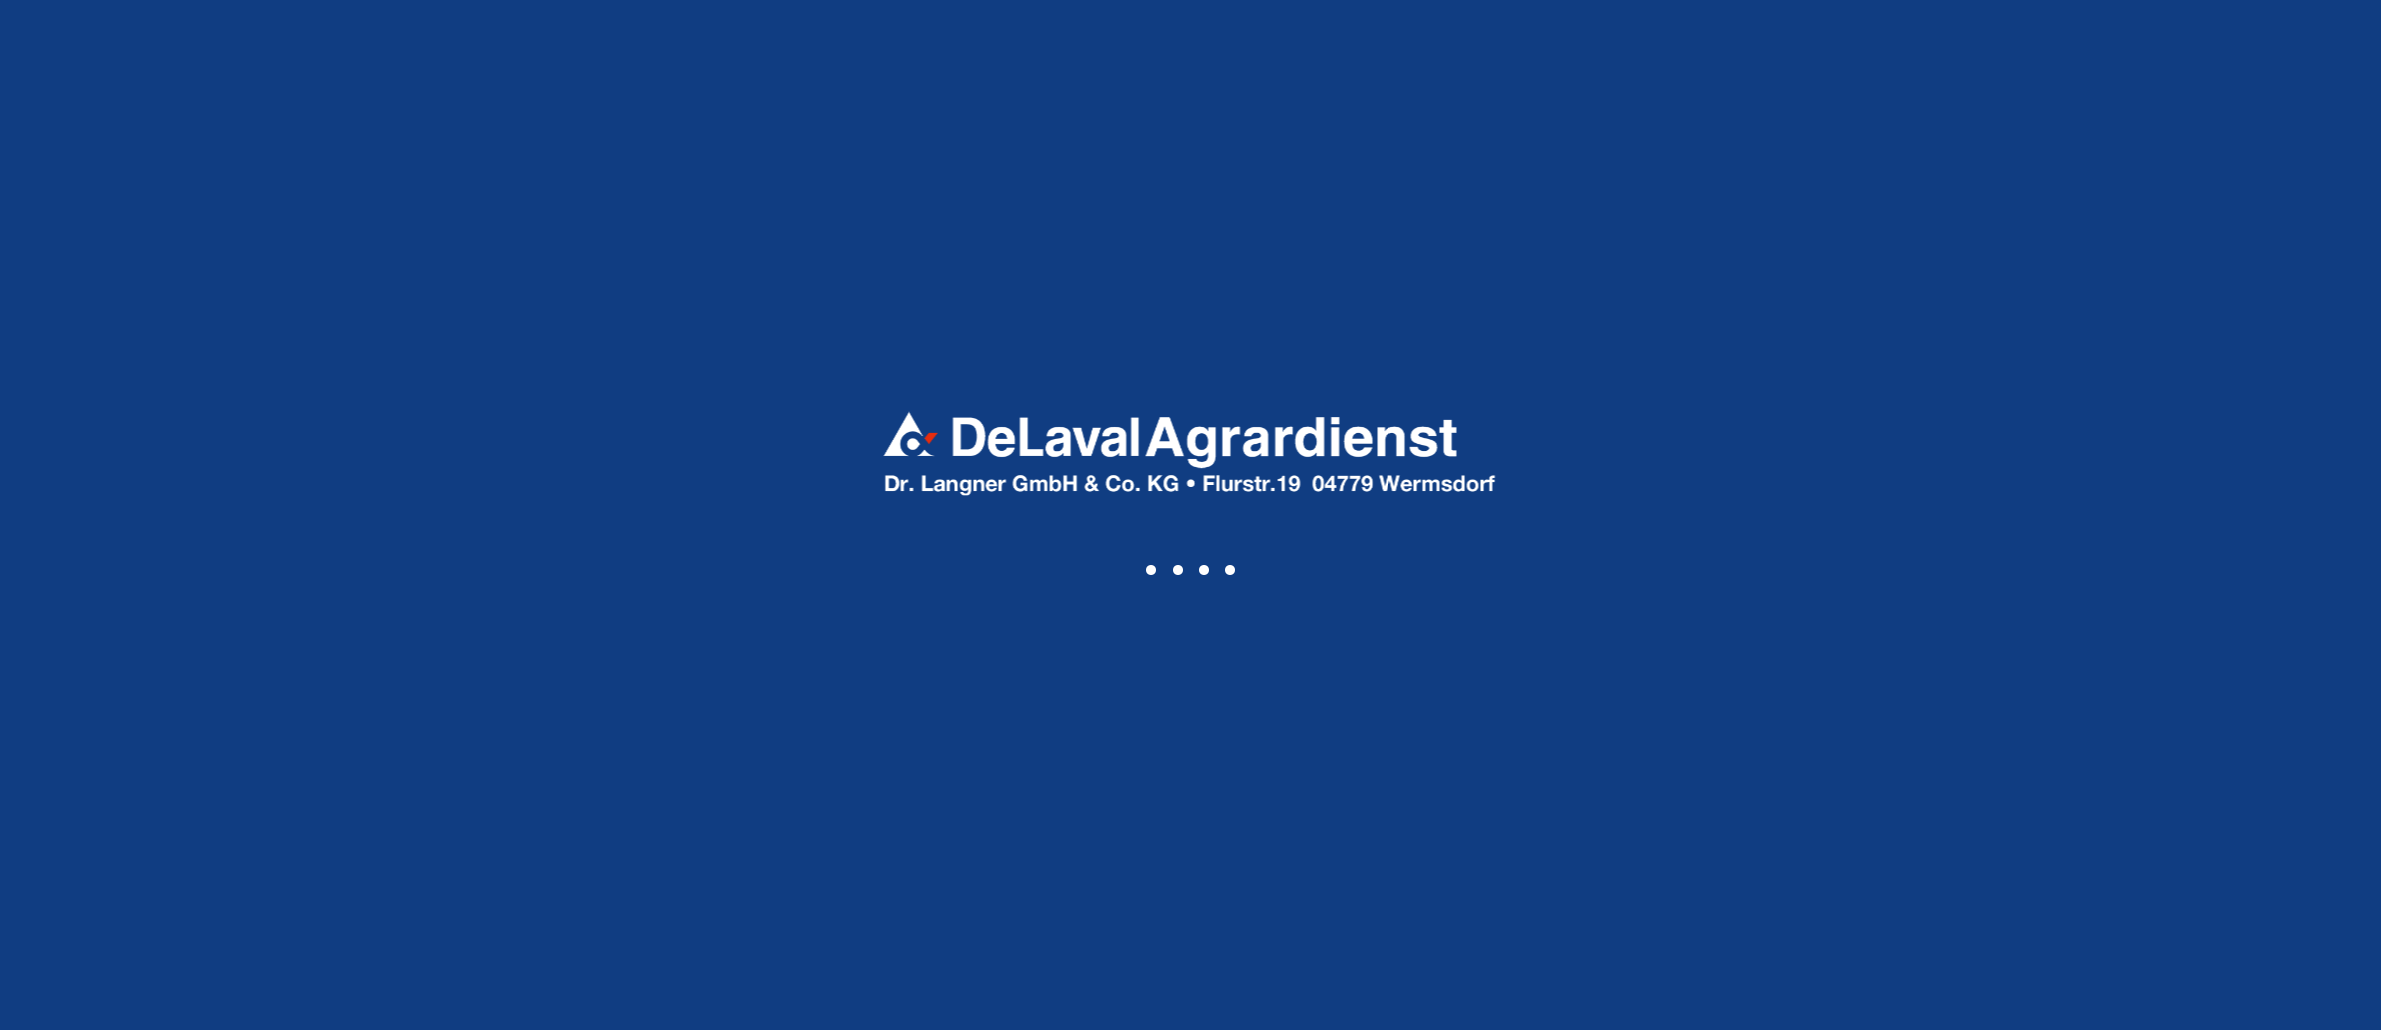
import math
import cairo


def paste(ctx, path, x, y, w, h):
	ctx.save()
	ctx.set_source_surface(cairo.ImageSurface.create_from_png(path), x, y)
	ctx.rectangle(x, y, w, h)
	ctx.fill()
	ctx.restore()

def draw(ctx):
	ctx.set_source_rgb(0.063, 0.239, 0.51)
	ctx.paint()
	paste(ctx, 'media/1.png', 883, 411, 613, 85)
	ctx.set_source_rgb(1, 1, 1)
	ctx.arc(1151, 570, 5, 0, 2 * math.pi)
	ctx.fill()
	ctx.arc(1178, 570, 5, 0, 2 * math.pi)
	ctx.fill()
	ctx.arc(1204, 570, 5, 0, 2 * math.pi)
	ctx.fill()
	ctx.arc(1230, 570, 5, 0, 2 * math.pi)
	ctx.fill()


surface = cairo.ImageSurface(cairo.FORMAT_RGB24, 2381, 1030)
ctx = cairo.Context(surface)
options = cairo.FontOptions()
options.set_hint_metrics(cairo.HINT_METRICS_OFF)
options.set_hint_style(cairo.HINT_STYLE_NONE)
ctx.set_font_options(options)
ctx.set_miter_limit(4)
draw(ctx)
surface.write_to_png('image.png')
